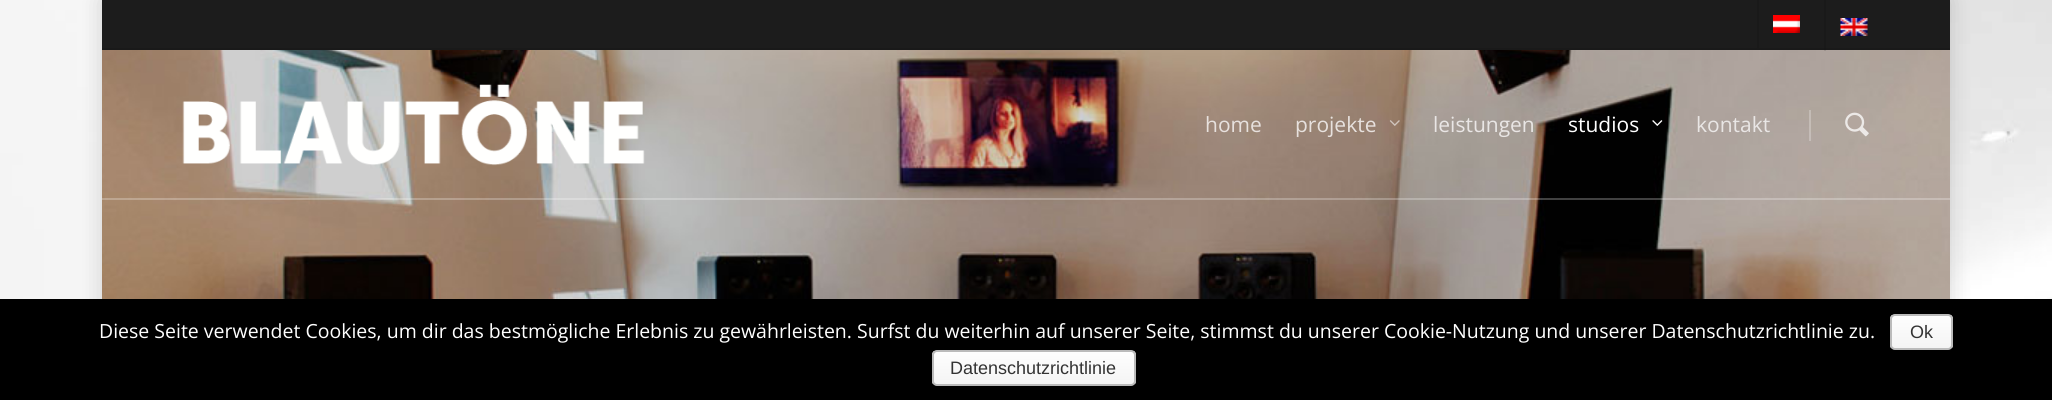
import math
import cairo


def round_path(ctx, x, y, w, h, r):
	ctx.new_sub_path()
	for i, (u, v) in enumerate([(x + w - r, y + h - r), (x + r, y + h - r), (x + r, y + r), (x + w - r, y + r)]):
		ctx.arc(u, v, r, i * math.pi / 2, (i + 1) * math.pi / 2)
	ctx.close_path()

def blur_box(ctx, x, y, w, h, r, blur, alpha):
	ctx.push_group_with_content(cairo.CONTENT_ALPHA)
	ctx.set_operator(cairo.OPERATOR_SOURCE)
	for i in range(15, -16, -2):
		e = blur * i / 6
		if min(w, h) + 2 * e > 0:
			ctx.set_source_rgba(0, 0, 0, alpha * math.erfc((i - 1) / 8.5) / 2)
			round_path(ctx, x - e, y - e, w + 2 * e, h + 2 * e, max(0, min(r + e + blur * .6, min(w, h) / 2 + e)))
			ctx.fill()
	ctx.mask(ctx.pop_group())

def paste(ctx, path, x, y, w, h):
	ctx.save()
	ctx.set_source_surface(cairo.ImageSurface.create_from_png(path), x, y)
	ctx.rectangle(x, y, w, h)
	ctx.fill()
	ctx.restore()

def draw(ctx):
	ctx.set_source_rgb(1, 1, 1)
	ctx.paint()
	paste(ctx, 'media/1.png', 0, 0, 2052, 299)
	ctx.set_source_rgb(0, 0, 0)
	blur_box(ctx, 102, 0, 1848, 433, 0, 11, 0.15)
	ctx.set_source_rgb(0.11, 0.11, 0.11)
	ctx.rectangle(102, 0, 1848, 48)
	ctx.fill()
	ctx.set_source_rgb(0.098, 0.098, 0.098)
	ctx.rectangle(102, 48, 1848, 2)
	ctx.rectangle(1757, 0, 2, 48)
	ctx.fill()
	paste(ctx, 'media/2.png', 1773, 15, 27, 18)
	paste(ctx, 'media/4.png', 102, 50, 1848, 249)
	ctx.set_source_rgba(0, 0, 0, 0.1)
	ctx.rectangle(1824, 0, 2, 51)
	ctx.fill()
	paste(ctx, 'media/3.png', 1840, 18, 28, 18)
	ctx.set_source_rgba(1, 1, 1, 0.25)
	ctx.rectangle(102, 198, 1848, 2)
	ctx.fill()
	paste(ctx, 'media/5.png', 182, 84, 463, 82)
	ctx.select_font_face('Open Sans')
	ctx.set_font_size(21)
	ctx.set_source_rgb(0.906, 0.882, 0.871)
	ctx.move_to(1205, 132)
	ctx.show_text('home')
	ctx.move_to(1295, 132)
	ctx.show_text('projekte')
	paste(ctx, 'media/6.png', 1389, 120, 11, 6)
	ctx.set_source_rgb(0.914, 0.902, 0.898)
	ctx.move_to(1433, 132)
	ctx.show_text('leistungen')
	ctx.set_source_rgb(1, 1, 1)
	ctx.move_to(1568, 132)
	ctx.show_text('studios')
	paste(ctx, 'media/7.png', 1652, 120, 11, 6)
	ctx.set_source_rgb(0.914, 0.902, 0.898)
	ctx.move_to(1696, 132)
	ctx.show_text('kontakt')
	ctx.set_source_rgba(1, 1, 1, 0.25)
	ctx.rectangle(1809, 110, 2, 31)
	ctx.fill()
	paste(ctx, 'media/8.png', 1845, 112, 24, 25)
	ctx.set_source_rgb(0, 0, 0)
	ctx.rectangle(0, 299, 2052, 101)
	ctx.fill()
	ctx.set_font_size(19.5)
	ctx.set_source_rgb(1, 1, 1)
	ctx.move_to(99, 338)
	ctx.show_text('Diese Seite verwendet Cookies, um dir das bestmögliche Erlebnis zu gewährleisten. Surfst du weiterhin auf unserer Seite, stimmst du unserer Cookie-Nutzung und unserer Datenschutzrichtlinie zu.')
	ctx.save()
	round_path(ctx, 1890, 314, 63, 36, 5)
	ctx.clip()
	gradient = cairo.LinearGradient(1922, 315, 1922, 348)
	gradient.add_color_stop_rgba(0, 0.996, 0.996, 0.996, 1)
	gradient.add_color_stop_rgba(1, 0.957, 0.957, 0.957, 1)
	ctx.set_source(gradient)
	ctx.rectangle(1890, 315, 63, 33)
	ctx.fill()
	ctx.restore()
	round_path(ctx, 1891, 315, 61, 34, 4)
	ctx.set_source_rgb(0.733, 0.733, 0.733)
	ctx.stroke()
	ctx.select_font_face('Liberation Sans')
	ctx.set_font_size(18)
	ctx.set_source_rgb(0.2, 0.2, 0.2)
	ctx.move_to(1910, 338)
	ctx.show_text('Ok')
	ctx.save()
	round_path(ctx, 932, 350, 204, 36, 5)
	ctx.clip()
	gradient = cairo.LinearGradient(1034, 351, 1034, 384)
	gradient.add_color_stop_rgba(0, 0.996, 0.996, 0.996, 1)
	gradient.add_color_stop_rgba(1, 0.957, 0.957, 0.957, 1)
	ctx.set_source(gradient)
	ctx.rectangle(932, 351, 204, 33)
	ctx.fill()
	ctx.restore()
	round_path(ctx, 933, 351, 202, 34, 4)
	ctx.set_source_rgb(0.733, 0.733, 0.733)
	ctx.stroke()
	ctx.set_source_rgb(0.2, 0.2, 0.2)
	ctx.move_to(950, 374)
	ctx.show_text('Datenschutzrichtlinie')


surface = cairo.ImageSurface(cairo.FORMAT_RGB24, 2052, 400)
ctx = cairo.Context(surface)
options = cairo.FontOptions()
options.set_hint_metrics(cairo.HINT_METRICS_OFF)
options.set_hint_style(cairo.HINT_STYLE_NONE)
ctx.set_font_options(options)
ctx.set_miter_limit(4)
draw(ctx)
surface.write_to_png('image.png')
